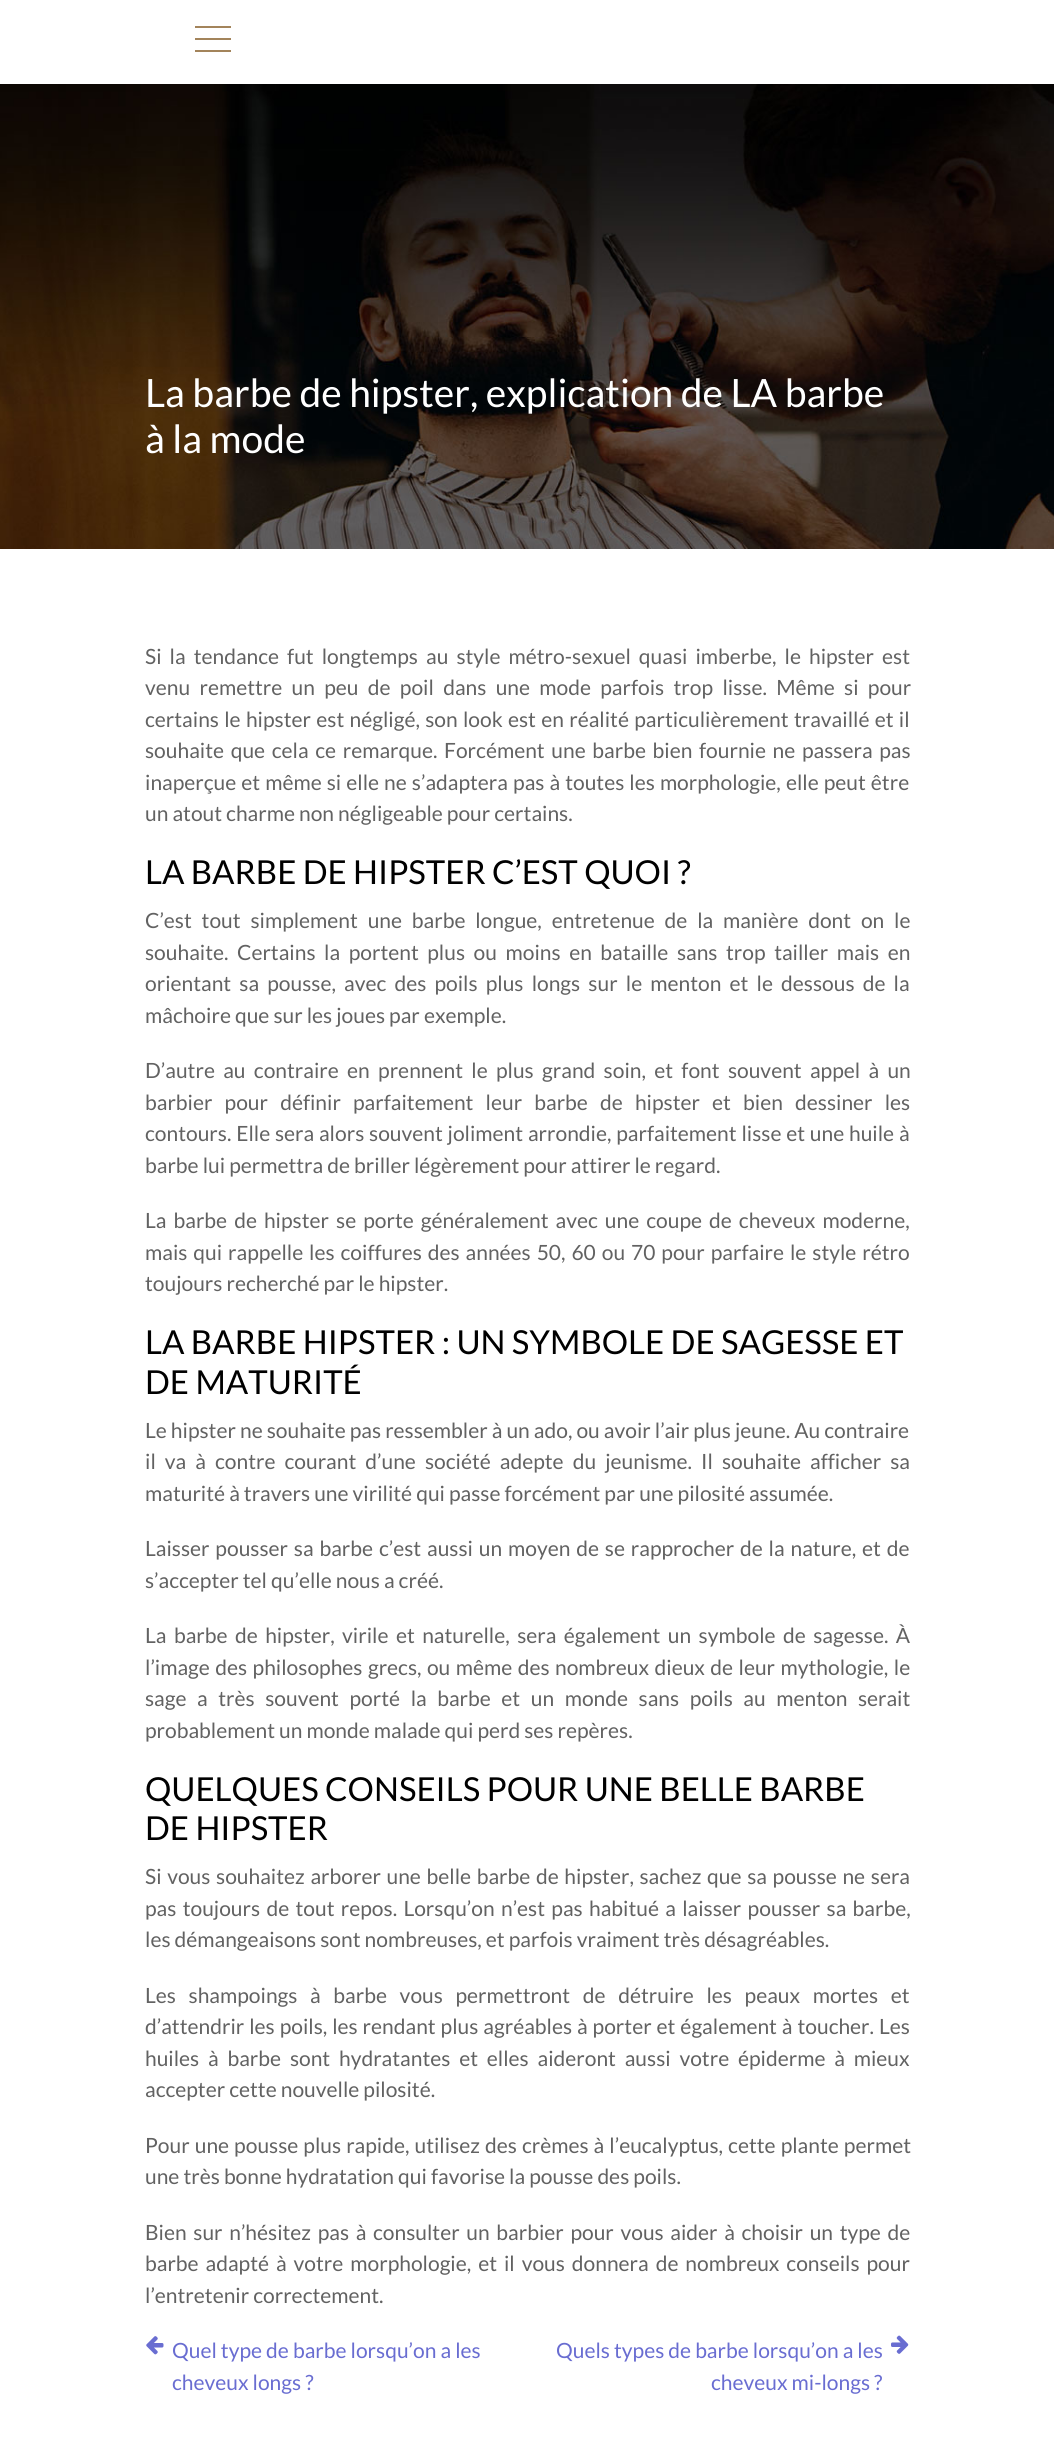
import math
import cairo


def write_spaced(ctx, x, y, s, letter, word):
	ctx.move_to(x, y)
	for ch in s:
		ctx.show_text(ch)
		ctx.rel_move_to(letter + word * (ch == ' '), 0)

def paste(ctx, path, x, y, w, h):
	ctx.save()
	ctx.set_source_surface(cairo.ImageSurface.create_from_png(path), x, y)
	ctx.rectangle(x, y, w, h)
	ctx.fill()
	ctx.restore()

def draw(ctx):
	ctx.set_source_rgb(1, 1, 1)
	ctx.paint()
	ctx.set_source_rgb(0.639, 0.518, 0.357)
	ctx.rectangle(195, 26, 36, 2)
	ctx.rectangle(195, 38, 36, 2)
	ctx.rectangle(195, 50, 36, 2)
	ctx.fill()
	paste(ctx, 'media/1.png', 0, 84, 1054, 465)
	ctx.select_font_face('Lato')
	ctx.set_font_size(39)
	ctx.set_source_rgb(1, 1, 1)
	ctx.move_to(145, 407)
	ctx.show_text('La barbe de hipster, explication de LA barbe')
	ctx.move_to(145, 453)
	ctx.show_text('à la mode')
	ctx.set_font_size(21)
	ctx.set_source_rgb(0.384, 0.384, 0.384)
	write_spaced(ctx, 145, 664, 'Si la tendance fut longtemps au style métro-sexuel quasi imberbe, le hipster est', 0, 4)
	write_spaced(ctx, 145, 695, 'venu remettre un peu de poil dans une mode parfois trop lisse. Même si pour', 0, 5.25)
	write_spaced(ctx, 145, 727, 'certains le hipster est négligé, son look est en réalité particulièrement travaillé et il', 0, 1.25)
	write_spaced(ctx, 145, 758, 'souhaite que cela ce remarque. Forcément une barbe bien fournie ne passera pas', 0, 2.6)
	write_spaced(ctx, 145, 790, 'inaperçue et même si elle ne s’adaptera pas à toutes les morphologie, elle peut être', 0, 1)
	ctx.move_to(145, 821)
	ctx.show_text('un atout charme non négligeable pour certains.')
	ctx.set_font_size(33)
	ctx.set_source_rgb(0, 0, 0)
	ctx.move_to(145, 884)
	ctx.show_text('LA BARBE DE HIPSTER C’EST QUOI ?')
	ctx.set_font_size(21)
	ctx.set_source_rgb(0.384, 0.384, 0.384)
	write_spaced(ctx, 145, 928, 'C’est tout simplement une barbe longue, entretenue de la manière dont on le', 0, 5.75)
	write_spaced(ctx, 145, 960, 'souhaite. Certains la portent plus ou moins en bataille sans trop tailler mais en', 0, 4.5)
	write_spaced(ctx, 145, 991, 'orientant sa pousse, avec des poils plus longs sur le menton et le dessous de la', 0, 4.1)
	ctx.move_to(145, 1023)
	ctx.show_text('mâchoire que sur les joues par exemple.')
	write_spaced(ctx, 145, 1078, 'D’autre au contraire en prennent le plus grand soin, et font souvent appel à un', 0, 4.25)
	write_spaced(ctx, 145, 1110, 'barbier pour définir parfaitement leur barbe de hipster et bien dessiner les', 0, 8.1)
	write_spaced(ctx, 145, 1141, 'contours. Elle sera alors souvent joliment arrondie, parfaitement lisse et une huile à', 0, 0.75)
	ctx.move_to(145, 1173)
	ctx.show_text('barbe lui permettra de briller légèrement pour attirer le regard.')
	write_spaced(ctx, 145, 1228, 'La barbe de hipster se porte généralement avec une coupe de cheveux moderne,', 0, 3)
	write_spaced(ctx, 145, 1260, 'mais qui rappelle les coiffures des années 50, 60 ou 70 pour parfaire le style rétro', 0, 1.9)
	ctx.move_to(145, 1291)
	ctx.show_text('toujours recherché par le hipster.')
	ctx.set_font_size(33)
	ctx.set_source_rgb(0, 0, 0)
	ctx.move_to(145, 1354)
	ctx.show_text('LA BARBE HIPSTER : UN SYMBOLE DE SAGESSE ET')
	ctx.move_to(145, 1394)
	ctx.show_text('DE MATURITÉ')
	ctx.set_font_size(21)
	ctx.set_source_rgb(0.384, 0.384, 0.384)
	ctx.move_to(145, 1438)
	ctx.show_text('Le hipster ne souhaite pas ressembler à un ado, ou avoir l’air plus jeune. Au contraire')
	write_spaced(ctx, 145, 1469, 'il va à contre courant d’une société adepte du jeunisme. Il souhaite afficher sa', 0, 5)
	ctx.move_to(145, 1501)
	ctx.show_text('maturité à travers une virilité qui passe forcément par une pilosité assumée.')
	write_spaced(ctx, 145, 1556, 'Laisser pousser sa barbe c’est aussi un moyen de se rapprocher de la nature, et de', 0, 1.8)
	ctx.move_to(145, 1588)
	ctx.show_text('s’accepter tel qu’elle nous a créé.')
	write_spaced(ctx, 145, 1643, 'La barbe de hipster, virile et naturelle, sera également un symbole de sagesse. À', 0, 3.4)
	write_spaced(ctx, 145, 1675, 'l’image des philosophes grecs, ou même des nombreux dieux de leur mythologie, le', 0, 1.4)
	write_spaced(ctx, 145, 1706, 'sage a très souvent porté la barbe et un monde sans poils au menton serait', 0, 6.5)
	ctx.move_to(145, 1738)
	ctx.show_text('probablement un monde malade qui perd ses repères.')
	ctx.set_font_size(33)
	ctx.set_source_rgb(0, 0, 0)
	ctx.move_to(145, 1801)
	ctx.show_text('QUELQUES CONSEILS POUR UNE BELLE BARBE')
	ctx.move_to(145, 1840)
	ctx.show_text('DE HIPSTER')
	ctx.set_font_size(21)
	ctx.set_source_rgb(0.384, 0.384, 0.384)
	write_spaced(ctx, 145, 1884, 'Si vous souhaitez arborer une belle barbe de hipster, sachez que sa pousse ne sera', 0, 1.6)
	write_spaced(ctx, 145, 1916, 'pas toujours de tout repos. Lorsqu’on n’est pas habitué a laisser pousser sa barbe,', 0, 2.25)
	ctx.move_to(145, 1947)
	ctx.show_text('les démangeaisons sont nombreuses, et parfois vraiment très désagréables.')
	write_spaced(ctx, 145, 2003, 'Les shampoings à barbe vous permettront de détruire les peaux mortes et', 0, 8.6)
	write_spaced(ctx, 145, 2034, 'd’attendrir les poils, les rendant plus agréables à porter et également à toucher. Les', 0, 0.9)
	write_spaced(ctx, 145, 2066, 'huiles à barbe sont hydratantes et elles aideront aussi votre épiderme à mieux', 0, 4.75)
	ctx.move_to(145, 2097)
	ctx.show_text('accepter cette nouvelle pilosité.')
	write_spaced(ctx, 145, 2153, 'Pour une pousse plus rapide, utilisez des crèmes à l’eucalyptus, cette plante permet', 0, 1)
	ctx.move_to(145, 2184)
	ctx.show_text('une très bonne hydratation qui favorise la pousse des poils.')
	write_spaced(ctx, 145, 2240, 'Bien sur n’hésitez pas à consulter un barbier pour vous aider à choisir un type de', 0, 2.6)
	write_spaced(ctx, 145, 2271, 'barbe adapté à votre morphologie, et il vous donnera de nombreux conseils pour', 0, 2.9)
	ctx.move_to(145, 2303)
	ctx.show_text('l’entretenir correctement.')
	paste(ctx, 'media/2.png', 146, 2336, 18, 19)
	ctx.set_source_rgb(0.412, 0.427, 0.82)
	for x, y, s in [
		(172, 2358, 'Quel type de barbe lorsqu’on a les'),
		(172, 2390, 'cheveux longs ?'),
		(556, 2358, 'Quels types de barbe lorsqu’on a les'),
	]:
		ctx.move_to(x, y)
		ctx.show_text(s)
	paste(ctx, 'media/3.png', 891, 2335, 18, 19)
	ctx.move_to(711, 2390)
	ctx.show_text('cheveux mi-longs ?')


surface = cairo.ImageSurface(cairo.FORMAT_RGB24, 1054, 2457)
ctx = cairo.Context(surface)
options = cairo.FontOptions()
options.set_hint_metrics(cairo.HINT_METRICS_OFF)
options.set_hint_style(cairo.HINT_STYLE_NONE)
ctx.set_font_options(options)
ctx.set_miter_limit(4)
draw(ctx)
surface.write_to_png('image.png')
